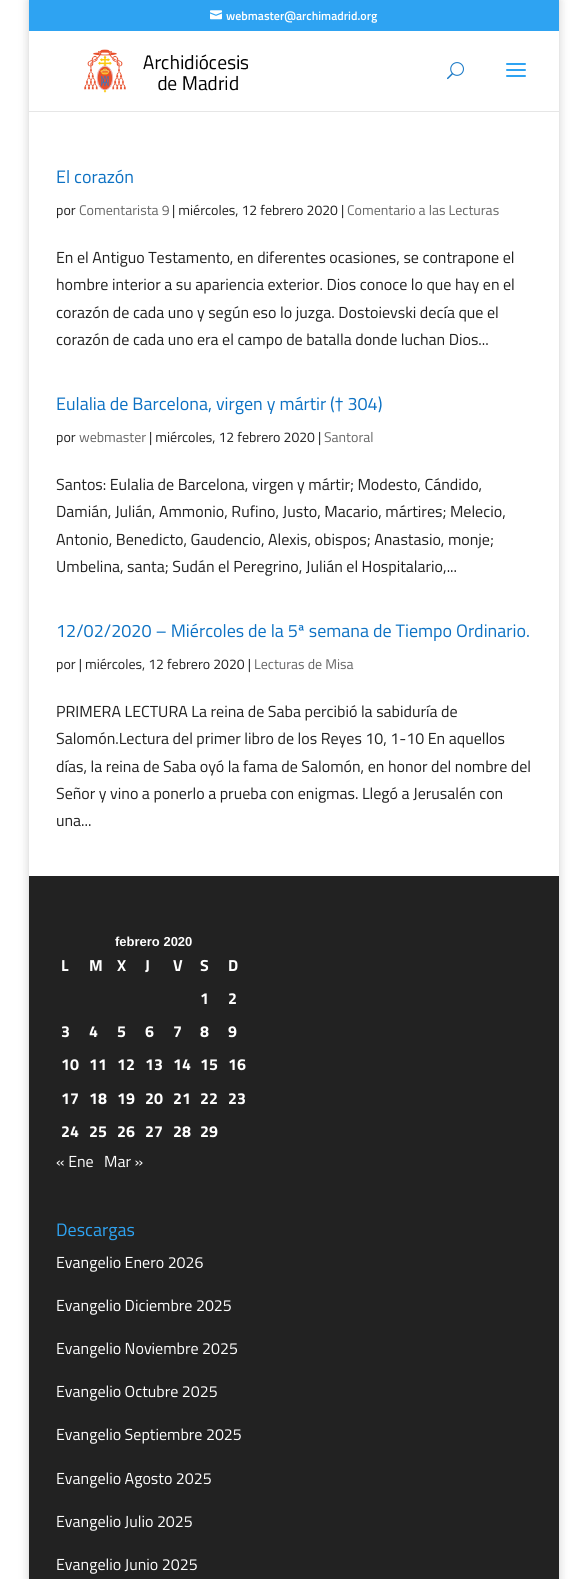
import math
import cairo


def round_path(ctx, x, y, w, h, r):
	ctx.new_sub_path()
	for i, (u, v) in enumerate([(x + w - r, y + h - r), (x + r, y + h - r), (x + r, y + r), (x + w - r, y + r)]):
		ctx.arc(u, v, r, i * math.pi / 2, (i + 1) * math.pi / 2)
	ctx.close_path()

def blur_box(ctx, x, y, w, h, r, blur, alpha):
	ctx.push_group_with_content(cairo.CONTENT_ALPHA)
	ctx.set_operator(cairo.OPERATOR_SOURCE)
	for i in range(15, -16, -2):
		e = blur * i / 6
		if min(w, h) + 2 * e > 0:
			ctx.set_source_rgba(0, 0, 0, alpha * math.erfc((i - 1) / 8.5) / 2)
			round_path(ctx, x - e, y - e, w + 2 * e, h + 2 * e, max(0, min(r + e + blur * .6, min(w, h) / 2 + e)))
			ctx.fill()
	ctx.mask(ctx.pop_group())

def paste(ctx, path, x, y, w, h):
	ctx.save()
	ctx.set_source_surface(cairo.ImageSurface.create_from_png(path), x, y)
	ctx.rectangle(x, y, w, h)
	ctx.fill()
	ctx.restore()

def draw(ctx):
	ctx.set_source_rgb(1, 1, 1)
	ctx.paint()
	ctx.save()
	ctx.set_fill_rule(cairo.FILL_RULE_EVEN_ODD)
	ctx.new_path()
	ctx.move_to(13, 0)
	ctx.line_to(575, 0)
	ctx.line_to(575, 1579)
	ctx.line_to(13, 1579)
	ctx.close_path()
	ctx.move_to(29, 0)
	ctx.line_to(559, 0)
	ctx.line_to(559, 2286)
	ctx.line_to(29, 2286)
	ctx.close_path()
	ctx.clip()
	ctx.set_source_rgb(0, 0, 0)
	blur_box(ctx, 29, 0, 530, 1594, 0, 5, 0.2)
	ctx.restore()
	ctx.set_source_rgb(0.18, 0.639, 0.949)
	ctx.rectangle(29, 0, 530, 31)
	ctx.fill()
	paste(ctx, 'media/1.png', 210, 10, 12, 10)
	ctx.select_font_face('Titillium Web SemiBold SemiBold')
	ctx.set_font_size(12)
	ctx.set_source_rgb(1, 1, 1)
	ctx.move_to(226, 20)
	ctx.show_text('webmaster@archimadrid.org')
	ctx.set_source_rgb(0.902, 0.902, 0.902)
	ctx.rectangle(29, 111, 530, 1)
	ctx.fill()
	paste(ctx, 'media/2.png', 84, 49, 164, 44)
	paste(ctx, 'media/3.png', 447, 62, 17, 18)
	paste(ctx, 'media/4.png', 506, 63, 20, 14)
	ctx.select_font_face('Titillium Web')
	ctx.set_font_size(18)
	ctx.set_source_rgb(0.047, 0.443, 0.765)
	ctx.move_to(56, 183)
	ctx.show_text('El corazón')
	ctx.set_font_size(14)
	ctx.set_source_rgb(0.129, 0.129, 0.129)
	ctx.move_to(56, 215)
	ctx.show_text('por')
	ctx.set_source_rgb(0.4, 0.4, 0.4)
	ctx.move_to(79, 215)
	ctx.show_text('Comentarista 9')
	ctx.set_source_rgb(0.129, 0.129, 0.129)
	ctx.move_to(172, 215)
	ctx.show_text('| miércoles, 12 febrero 2020 |')
	ctx.set_source_rgb(0.4, 0.4, 0.4)
	ctx.move_to(347, 215)
	ctx.show_text('Comentario a las Lecturas')
	ctx.set_font_size(16)
	ctx.set_source_rgb(0.129, 0.129, 0.129)
	for x, y, s in [
		(56, 263, 'En el Antiguo Testamento, en diferentes ocasiones, se contrapone el'),
		(56, 290, 'hombre interior a su apariencia exterior. Dios conoce lo que hay en el'),
		(56, 318, 'corazón de cada uno y según eso lo juzga. Dostoievski decía que el'),
		(56, 345, 'corazón de cada uno era el campo de batalla donde luchan Dios...'),
	]:
		ctx.move_to(x, y)
		ctx.show_text(s)
	ctx.set_font_size(18)
	ctx.set_source_rgb(0.047, 0.443, 0.765)
	ctx.move_to(56, 410)
	ctx.show_text('Eulalia de Barcelona, virgen y mártir († 304)')
	ctx.set_font_size(14)
	ctx.set_source_rgb(0.129, 0.129, 0.129)
	ctx.move_to(56, 442)
	ctx.show_text('por')
	ctx.set_source_rgb(0.4, 0.4, 0.4)
	ctx.move_to(79, 442)
	ctx.show_text('webmaster')
	ctx.set_source_rgb(0.129, 0.129, 0.129)
	ctx.move_to(149, 442)
	ctx.show_text('| miércoles, 12 febrero 2020 |')
	ctx.set_source_rgb(0.4, 0.4, 0.4)
	ctx.move_to(324, 442)
	ctx.show_text('Santoral')
	ctx.set_font_size(16)
	ctx.set_source_rgb(0.129, 0.129, 0.129)
	for x, y, s in [
		(56, 490, 'Santos: Eulalia de Barcelona, virgen y mártir; Modesto, Cándido,'),
		(56, 517, 'Damián, Julián, Ammonio, Rufino, Justo, Macario, mártires; Melecio,'),
		(56, 545, 'Antonio, Benedicto, Gaudencio, Alexis, obispos; Anastasio, monje;'),
		(56, 572, 'Umbelina, santa; Sudán el Peregrino, Julián el Hospitalario,...'),
	]:
		ctx.move_to(x, y)
		ctx.show_text(s)
	ctx.set_font_size(18)
	ctx.set_source_rgb(0.047, 0.443, 0.765)
	ctx.move_to(56, 637)
	ctx.show_text('12/02/2020 – Miércoles de la 5ª semana de Tiempo Ordinario.')
	ctx.set_font_size(14)
	ctx.set_source_rgb(0.129, 0.129, 0.129)
	ctx.move_to(56, 669)
	ctx.show_text('por | miércoles, 12 febrero 2020 |')
	ctx.set_source_rgb(0.4, 0.4, 0.4)
	ctx.move_to(254, 669)
	ctx.show_text('Lecturas de Misa')
	ctx.set_font_size(16)
	ctx.set_source_rgb(0.129, 0.129, 0.129)
	for x, y, s in [
		(56, 717, 'PRIMERA LECTURA La reina de Saba percibió la sabiduría de'),
		(56, 744, 'Salomón.Lectura del primer libro de los Reyes 10, 1-10 En aquellos'),
		(56, 772, 'días, la reina de Saba oyó la fama de Salomón, en honor del nombre del'),
		(56, 799, 'Señor y vino a ponerlo a prueba con enigmas. Llegó a Jerusalén con'),
		(56, 826, 'una...'),
	]:
		ctx.move_to(x, y)
		ctx.show_text(s)
	ctx.set_source_rgb(0.133, 0.133, 0.133)
	ctx.rectangle(29, 876, 530, 703)
	ctx.fill()
	ctx.select_font_face('Liberation Sans', cairo.FONT_SLANT_NORMAL, cairo.FONT_WEIGHT_BOLD)
	ctx.set_font_size(13)
	ctx.set_source_rgb(1, 1, 1)
	ctx.move_to(115, 946)
	ctx.show_text('febrero 2020')
	ctx.select_font_face('Titillium Web', cairo.FONT_SLANT_NORMAL, cairo.FONT_WEIGHT_BOLD)
	ctx.set_font_size(16)
	for x, y, s in [
		(61, 971, 'L'),
		(89, 971, 'M'),
		(117, 971, 'X'),
		(145, 971, 'J'),
		(173, 971, 'V'),
		(200, 971, 'S'),
		(228, 971, 'D'),
		(200, 1004, '1'),
		(228, 1004, '2'),
		(61, 1037, '3'),
		(89, 1037, '4'),
		(117, 1037, '5'),
		(145, 1037, '6'),
		(173, 1037, '7'),
		(200, 1037, '8'),
		(228, 1037, '9'),
		(61, 1070, '10'),
		(89, 1070, '11'),
		(117, 1070, '12'),
		(145, 1070, '13'),
		(173, 1070, '14'),
		(200, 1070, '15'),
		(228, 1070, '16'),
		(61, 1104, '17'),
		(89, 1104, '18'),
		(117, 1104, '19'),
		(145, 1104, '20'),
		(173, 1104, '21'),
		(200, 1104, '22'),
		(228, 1104, '23'),
		(61, 1137, '24'),
		(89, 1137, '25'),
		(117, 1137, '26'),
		(145, 1137, '27'),
		(173, 1137, '28'),
		(200, 1137, '29'),
	]:
		ctx.move_to(x, y)
		ctx.show_text(s)
	ctx.select_font_face('Titillium Web')
	ctx.move_to(56, 1167)
	ctx.show_text('« Ene')
	ctx.move_to(104, 1167)
	ctx.show_text('Mar »')
	ctx.set_font_size(18)
	ctx.set_source_rgb(0.18, 0.639, 0.949)
	ctx.move_to(56, 1236)
	ctx.show_text('Descargas')
	ctx.set_font_size(16)
	ctx.set_source_rgb(1, 1, 1)
	for x, y, s in [
		(56, 1268, 'Evangelio Enero 2026'),
		(56, 1311, 'Evangelio Diciembre 2025'),
		(56, 1354, 'Evangelio Noviembre 2025'),
		(56, 1397, 'Evangelio Octubre 2025'),
		(56, 1440, 'Evangelio Septiembre 2025'),
		(56, 1484, 'Evangelio Agosto 2025'),
		(56, 1527, 'Evangelio Julio 2025'),
		(56, 1570, 'Evangelio Junio 2025'),
	]:
		ctx.move_to(x, y)
		ctx.show_text(s)


surface = cairo.ImageSurface(cairo.FORMAT_RGB24, 588, 1579)
ctx = cairo.Context(surface)
options = cairo.FontOptions()
options.set_hint_metrics(cairo.HINT_METRICS_OFF)
options.set_hint_style(cairo.HINT_STYLE_NONE)
ctx.set_font_options(options)
ctx.set_miter_limit(4)
draw(ctx)
surface.write_to_png('image.png')
